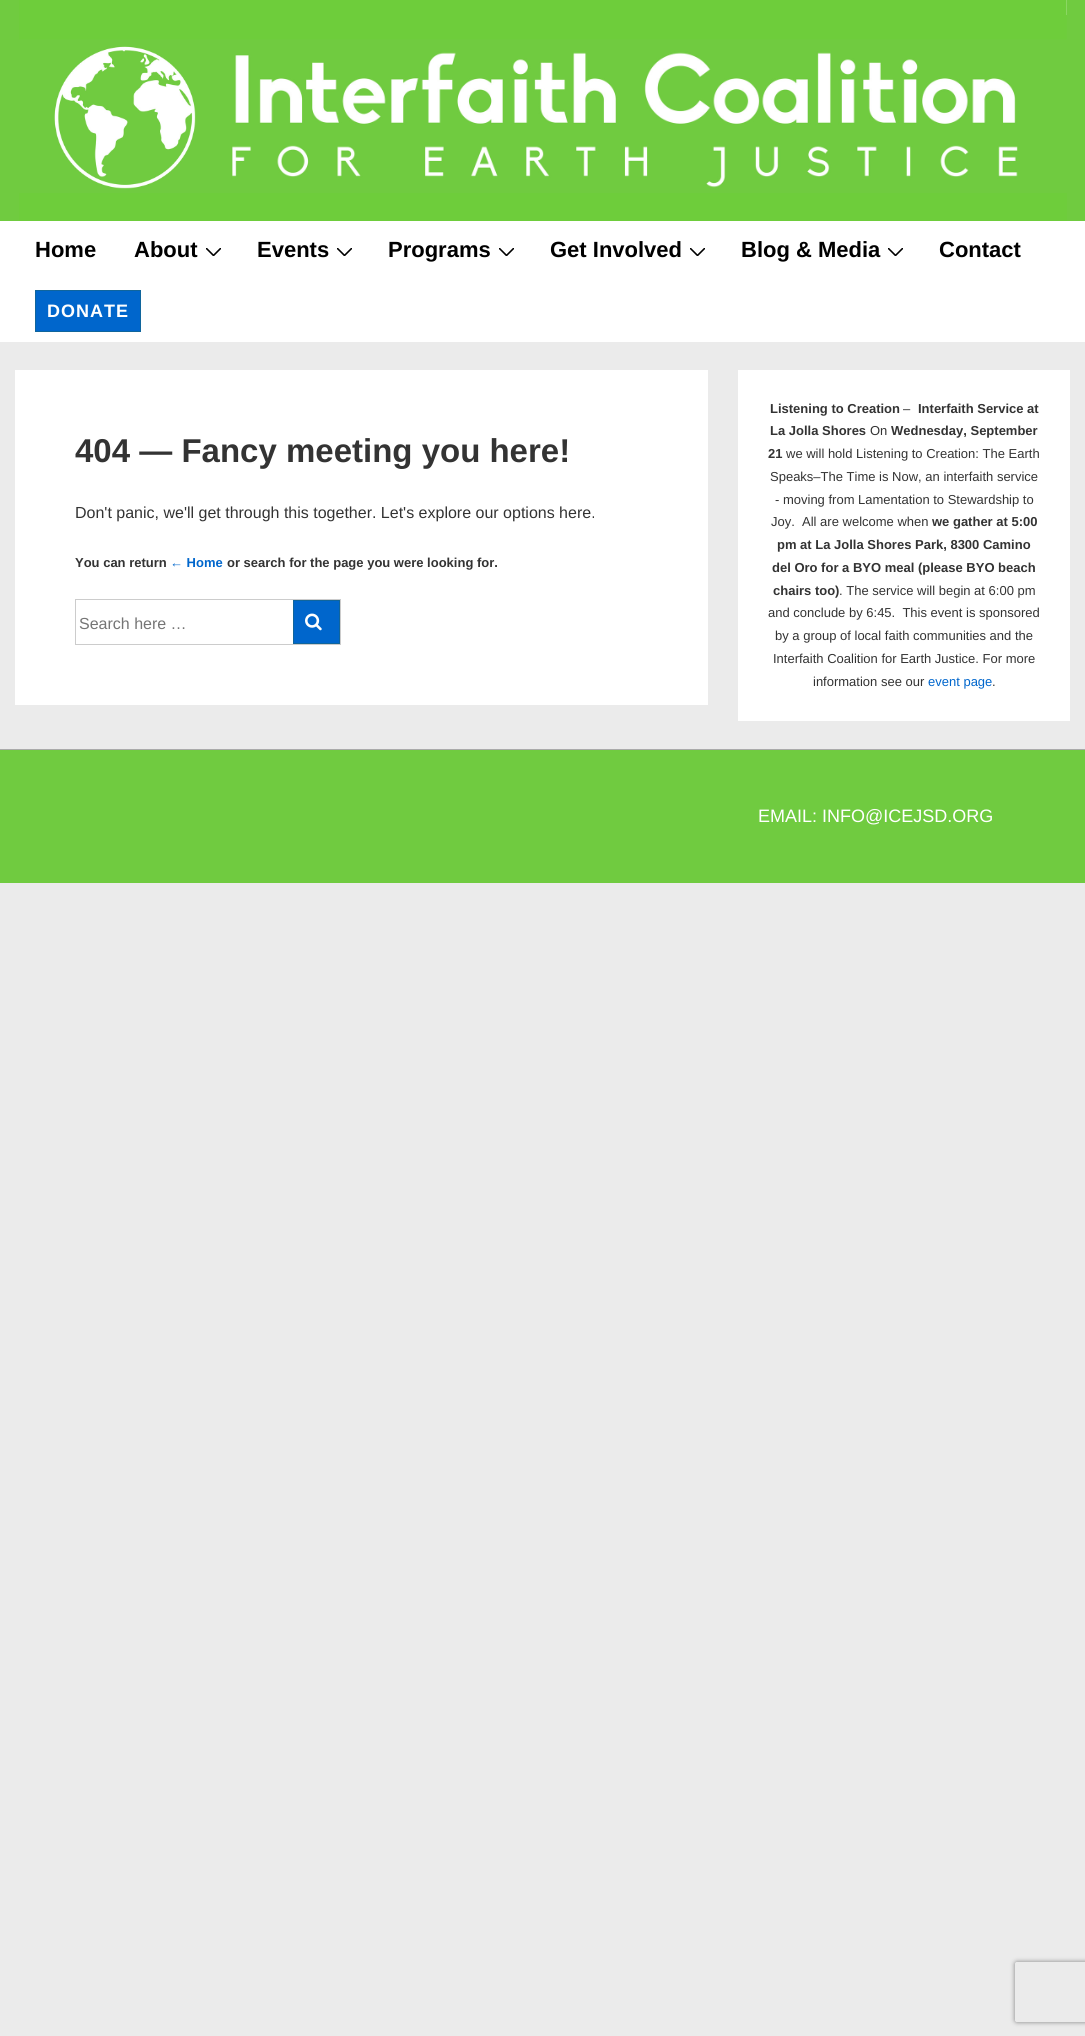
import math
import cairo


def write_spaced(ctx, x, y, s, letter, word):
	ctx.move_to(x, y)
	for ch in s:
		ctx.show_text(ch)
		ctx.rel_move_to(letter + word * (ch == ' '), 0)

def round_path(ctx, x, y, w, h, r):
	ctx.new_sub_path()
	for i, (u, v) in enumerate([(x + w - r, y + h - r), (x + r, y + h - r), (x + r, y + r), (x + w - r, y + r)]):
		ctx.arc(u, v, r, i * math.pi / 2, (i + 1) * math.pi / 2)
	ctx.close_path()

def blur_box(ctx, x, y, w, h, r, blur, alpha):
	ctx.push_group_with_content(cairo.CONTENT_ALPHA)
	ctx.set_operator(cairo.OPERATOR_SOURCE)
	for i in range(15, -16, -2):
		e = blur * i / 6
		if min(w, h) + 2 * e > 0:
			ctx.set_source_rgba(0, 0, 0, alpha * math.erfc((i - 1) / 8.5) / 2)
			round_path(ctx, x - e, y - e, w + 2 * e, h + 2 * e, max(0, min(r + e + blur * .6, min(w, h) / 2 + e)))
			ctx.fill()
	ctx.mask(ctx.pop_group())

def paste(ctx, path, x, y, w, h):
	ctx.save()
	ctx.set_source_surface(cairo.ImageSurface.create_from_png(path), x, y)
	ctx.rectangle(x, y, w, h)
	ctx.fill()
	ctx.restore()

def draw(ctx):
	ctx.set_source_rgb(0.918, 0.918, 0.918)
	ctx.paint()
	ctx.set_source_rgb(0.439, 0.796, 0.251)
	ctx.rectangle(0, 0, 1085, 221)
	ctx.fill()
	paste(ctx, 'media/1.png', 19, 0, 1048, 221)
	ctx.set_source_rgb(1, 1, 1)
	ctx.rectangle(0, 221, 1085, 121)
	ctx.fill()
	ctx.select_font_face('Liberation Sans', cairo.FONT_SLANT_NORMAL, cairo.FONT_WEIGHT_BOLD)
	ctx.set_font_size(22)
	ctx.set_source_rgb(0, 0, 0)
	ctx.move_to(35, 257)
	ctx.show_text('Home')
	ctx.move_to(134, 257)
	ctx.show_text('About')
	ctx.save()
	ctx.rectangle(206, 248, 15, 8)
	ctx.clip()
	ctx.new_path()
	ctx.move_to(206.5, 248.5)
	ctx.line_to(213.5, 255.5)
	ctx.line_to(220.5, 248.5)
	ctx.set_line_width(1.6)
	ctx.set_line_cap(cairo.LINE_CAP_ROUND)
	ctx.stroke()
	ctx.restore()
	ctx.move_to(257, 257)
	ctx.show_text('Events')
	ctx.save()
	ctx.rectangle(337, 248, 15, 8)
	ctx.clip()
	ctx.new_path()
	ctx.move_to(337.5, 248.5)
	ctx.line_to(344.5, 255.5)
	ctx.line_to(351.5, 248.5)
	ctx.set_line_width(1.6)
	ctx.set_line_cap(cairo.LINE_CAP_ROUND)
	ctx.stroke()
	ctx.restore()
	ctx.move_to(388, 257)
	ctx.show_text('Programs')
	ctx.save()
	ctx.rectangle(499, 248, 15, 8)
	ctx.clip()
	ctx.new_path()
	ctx.move_to(499.5, 248.5)
	ctx.line_to(506.5, 255.5)
	ctx.line_to(513.5, 248.5)
	ctx.set_line_width(1.6)
	ctx.set_line_cap(cairo.LINE_CAP_ROUND)
	ctx.stroke()
	ctx.restore()
	ctx.move_to(550, 257)
	ctx.show_text('Get Involved')
	ctx.save()
	ctx.rectangle(690, 248, 15, 8)
	ctx.clip()
	ctx.new_path()
	ctx.move_to(690.5, 248.5)
	ctx.line_to(697.5, 255.5)
	ctx.line_to(704.5, 248.5)
	ctx.set_line_width(1.6)
	ctx.set_line_cap(cairo.LINE_CAP_ROUND)
	ctx.stroke()
	ctx.restore()
	ctx.move_to(741, 257)
	ctx.show_text('Blog & Media')
	ctx.save()
	ctx.rectangle(888, 248, 15, 8)
	ctx.clip()
	ctx.new_path()
	ctx.move_to(888.5, 248.5)
	ctx.line_to(895.5, 255.5)
	ctx.line_to(902.5, 248.5)
	ctx.set_line_width(1.6)
	ctx.set_line_cap(cairo.LINE_CAP_ROUND)
	ctx.stroke()
	ctx.restore()
	ctx.move_to(939, 257)
	ctx.show_text('Contact')
	ctx.set_source_rgb(0, 0.4, 0.8)
	ctx.rectangle(35.5, 290.5, 105, 41)
	ctx.fill_preserve()
	ctx.set_source_rgb(0.063, 0.396, 0.612)
	ctx.set_line_width(1)
	ctx.stroke()
	ctx.set_font_size(18)
	ctx.set_source_rgb(1, 1, 1)
	write_spaced(ctx, 47, 317, 'DONATE', 1, 0)
	ctx.rectangle(15, 370, 693, 335)
	ctx.fill()
	ctx.set_font_size(33)
	ctx.set_source_rgb(0.2, 0.2, 0.2)
	ctx.move_to(75, 462)
	ctx.show_text('404 — Fancy meeting you here!')
	ctx.select_font_face('Liberation Sans')
	ctx.set_font_size(16)
	ctx.move_to(75, 518)
	ctx.show_text('Don\'t panic, we\'ll get through this together. Let\'s explore our options here.')
	ctx.select_font_face('Liberation Sans', cairo.FONT_SLANT_NORMAL, cairo.FONT_WEIGHT_BOLD)
	ctx.set_font_size(13)
	ctx.move_to(75, 567)
	ctx.show_text('You can return')
	ctx.set_source_rgb(0, 0.4, 0.8)
	ctx.move_to(170, 567)
	ctx.show_text('← Home')
	ctx.set_source_rgb(0.2, 0.2, 0.2)
	ctx.move_to(227, 567)
	ctx.show_text('or search for the page you were looking for.')
	ctx.rectangle(75.5, 599.5, 265, 45)
	ctx.set_source_rgb(0.8, 0.8, 0.8)
	ctx.stroke()
	ctx.select_font_face('Liberation Sans')
	ctx.set_font_size(16)
	ctx.set_source_rgb(0.459, 0.459, 0.459)
	ctx.move_to(79, 629)
	ctx.show_text('Search here …')
	ctx.set_source_rgb(0, 0.4, 0.8)
	ctx.rectangle(293.5, 600.5, 46, 43)
	ctx.fill_preserve()
	ctx.set_source_rgb(0.063, 0.396, 0.612)
	ctx.stroke()
	paste(ctx, 'media/2.png', 305, 613, 17, 18)
	ctx.set_source_rgb(1, 1, 1)
	ctx.rectangle(738, 370, 332, 351)
	ctx.fill()
	ctx.select_font_face('Liberation Sans', cairo.FONT_SLANT_NORMAL, cairo.FONT_WEIGHT_BOLD)
	ctx.set_font_size(13)
	ctx.set_source_rgb(0.2, 0.2, 0.2)
	ctx.move_to(770, 413)
	ctx.show_text('Listening to Creation')
	ctx.select_font_face('Liberation Sans')
	ctx.move_to(903, 413)
	ctx.show_text('–')
	ctx.select_font_face('Liberation Sans', cairo.FONT_SLANT_NORMAL, cairo.FONT_WEIGHT_BOLD)
	ctx.move_to(918, 413)
	ctx.show_text('Interfaith Service at')
	ctx.move_to(770, 435)
	ctx.show_text('La Jolla Shores')
	ctx.select_font_face('Liberation Sans')
	ctx.move_to(870, 435)
	ctx.show_text('On')
	ctx.select_font_face('Liberation Sans', cairo.FONT_SLANT_NORMAL, cairo.FONT_WEIGHT_BOLD)
	ctx.move_to(891, 435)
	ctx.show_text('Wednesday, September')
	ctx.move_to(768, 458)
	ctx.show_text('21')
	ctx.select_font_face('Liberation Sans')
	for x, y, s in [
		(786, 458, 'we will hold Listening to Creation: The Earth'),
		(770, 481, 'Speaks–The Time is Now, an interfaith service'),
		(775, 504, '- moving from Lamentation to Stewardship to'),
		(771, 526, 'Joy.  All are welcome when'),
	]:
		ctx.move_to(x, y)
		ctx.show_text(s)
	ctx.select_font_face('Liberation Sans', cairo.FONT_SLANT_NORMAL, cairo.FONT_WEIGHT_BOLD)
	for x, y, s in [
		(932, 526, 'we gather at 5:00'),
		(777, 549, 'pm at La Jolla Shores Park, 8300 Camino'),
		(772, 572, 'del Oro for a BYO meal (please BYO beach'),
		(773, 595, 'chairs too)'),
	]:
		ctx.move_to(x, y)
		ctx.show_text(s)
	ctx.select_font_face('Liberation Sans')
	for x, y, s in [
		(839, 595, '. The service will begin at 6:00 pm'),
		(768, 617, 'and conclude by 6:45.  This event is sponsored'),
		(775, 640, 'by a group of local faith communities and the'),
		(773, 663, 'Interfaith Coalition for Earth Justice. For more'),
		(813, 686, 'information see our'),
	]:
		ctx.move_to(x, y)
		ctx.show_text(s)
	ctx.set_source_rgb(0, 0.4, 0.8)
	ctx.move_to(928, 686)
	ctx.show_text('event page')
	ctx.set_source_rgb(0.2, 0.2, 0.2)
	ctx.move_to(992, 686)
	ctx.show_text('.')
	ctx.set_source_rgb(0.439, 0.796, 0.251)
	ctx.rectangle(0, 750, 1085, 133)
	ctx.fill()
	ctx.set_source_rgb(0.667, 0.667, 0.667)
	ctx.rectangle(0, 749, 1085, 1)
	ctx.fill()
	ctx.set_font_size(18)
	ctx.set_source_rgb(1, 1, 1)
	ctx.move_to(758, 822)
	ctx.show_text('EMAIL: INFO@ICEJSD.ORG')
	ctx.save()
	ctx.set_fill_rule(cairo.FILL_RULE_EVEN_ODD)
	ctx.new_path()
	ctx.move_to(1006, 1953)
	ctx.line_to(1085, 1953)
	ctx.line_to(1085, 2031)
	ctx.line_to(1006, 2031)
	ctx.close_path()
	ctx.move_to(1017, 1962)
	ctx.line_to(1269, 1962)
	ctx.curve_to(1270, 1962, 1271, 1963, 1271, 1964)
	ctx.line_to(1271, 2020)
	ctx.curve_to(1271, 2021, 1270, 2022, 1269, 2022)
	ctx.line_to(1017, 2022)
	ctx.curve_to(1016, 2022, 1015, 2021, 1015, 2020)
	ctx.line_to(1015, 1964)
	ctx.curve_to(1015, 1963, 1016, 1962, 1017, 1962)
	ctx.close_path()
	ctx.clip()
	ctx.set_source_rgb(0.502, 0.502, 0.502)
	blur_box(ctx, 1015, 1962, 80, 60, 2, 2.5, 1)
	ctx.restore()


surface = cairo.ImageSurface(cairo.FORMAT_RGB24, 1085, 2036)
ctx = cairo.Context(surface)
options = cairo.FontOptions()
options.set_hint_metrics(cairo.HINT_METRICS_OFF)
options.set_hint_style(cairo.HINT_STYLE_NONE)
ctx.set_font_options(options)
ctx.set_miter_limit(4)
draw(ctx)
surface.write_to_png('image.png')
